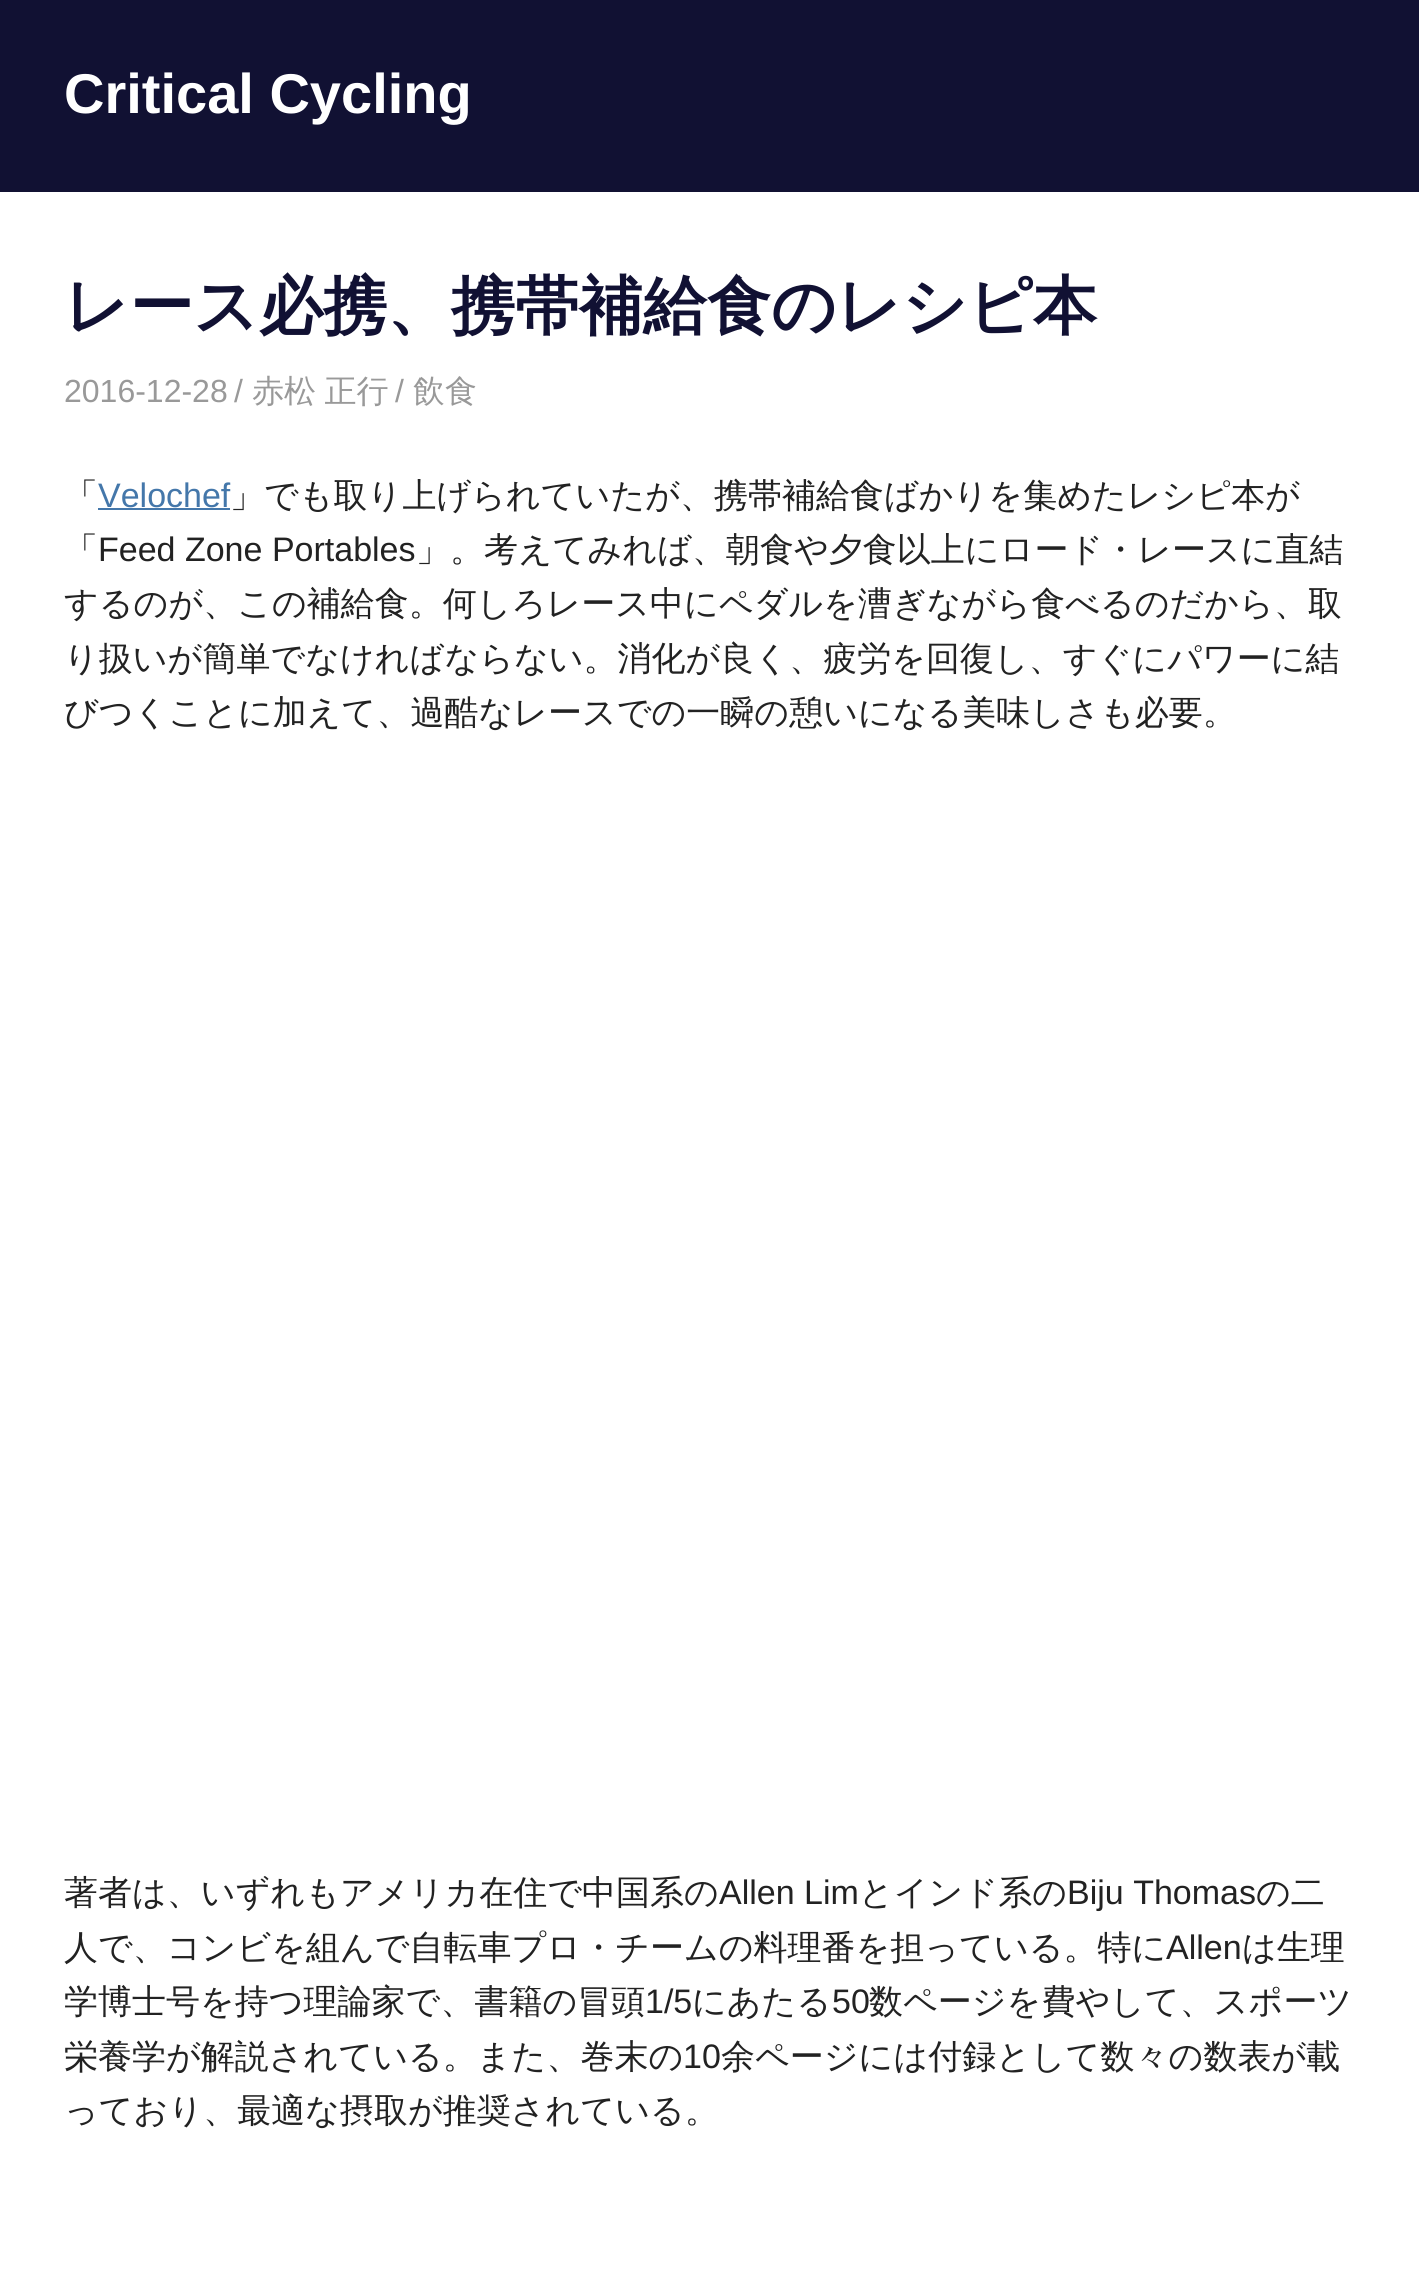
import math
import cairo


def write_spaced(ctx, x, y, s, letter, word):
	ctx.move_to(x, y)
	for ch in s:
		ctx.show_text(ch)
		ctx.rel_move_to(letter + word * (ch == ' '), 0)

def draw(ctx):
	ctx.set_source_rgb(1, 1, 1)
	ctx.paint()
	ctx.set_source_rgb(0.067, 0.067, 0.2)
	ctx.rectangle(0, 0, 1419, 192)
	ctx.fill()
	ctx.select_font_face('Liberation Sans', cairo.FONT_SLANT_NORMAL, cairo.FONT_WEIGHT_BOLD)
	ctx.set_font_size(56)
	ctx.set_source_rgb(1, 1, 1)
	ctx.move_to(64, 113)
	ctx.show_text('Critical Cycling')
	ctx.select_font_face('WenQuanYi Zen Hei', cairo.FONT_SLANT_NORMAL, cairo.FONT_WEIGHT_BOLD)
	ctx.set_font_size(64)
	ctx.set_source_rgb(0.067, 0.067, 0.2)
	ctx.move_to(64, 328)
	ctx.show_text('レース必携、携帯補給食のレシピ本')
	ctx.select_font_face('Liberation Sans')
	ctx.set_font_size(32)
	ctx.set_source_rgb(0.6, 0.6, 0.6)
	ctx.move_to(64, 402)
	ctx.show_text('2016-12-28')
	ctx.move_to(234, 402)
	ctx.show_text('/')
	ctx.select_font_face('WenQuanYi Zen Hei Medium')
	write_spaced(ctx, 252, 402, '赤松 正行', 0, -1)
	ctx.select_font_face('Liberation Sans')
	ctx.move_to(395, 402)
	ctx.show_text('/')
	ctx.select_font_face('WenQuanYi Zen Hei Medium')
	ctx.move_to(413, 402)
	ctx.show_text('飲食')
	ctx.set_font_size(34)
	ctx.set_source_rgb(0.133, 0.133, 0.133)
	ctx.move_to(64, 507)
	ctx.show_text('「')
	ctx.select_font_face('Liberation Sans')
	ctx.set_source_rgb(0.267, 0.467, 0.667)
	ctx.move_to(98, 507)
	ctx.show_text('Velochef')
	ctx.rectangle(98, 508, 132, 2)
	ctx.fill()
	ctx.select_font_face('WenQuanYi Zen Hei Medium')
	ctx.set_source_rgb(0.133, 0.133, 0.133)
	ctx.move_to(230, 507)
	ctx.show_text('」でも取り上げられていたが、携帯補給食ばかりを集めたレシピ本が')
	ctx.move_to(64, 561)
	ctx.show_text('「')
	ctx.select_font_face('Liberation Sans')
	ctx.move_to(98, 561)
	ctx.show_text('Feed Zone Portables')
	ctx.select_font_face('WenQuanYi Zen Hei Medium')
	for x, y, s in [
		(416, 561, '」。考えてみれば、朝食や夕食以上にロード・レースに直結'),
		(64, 615, 'するのが、この補給食。何しろレース中にペダルを漕ぎながら食べるのだから、取'),
		(64, 670, 'り扱いが簡単でなければならない。消化が良く、疲労を回復し、すぐにパワーに結'),
		(64, 724, 'びつくことに加えて、過酷なレースでの一瞬の憩いになる美味しさも必要。'),
		(64, 1904, '著者は、いずれもアメリカ在住で中国系の'),
	]:
		ctx.move_to(x, y)
		ctx.show_text(s)
	ctx.select_font_face('Liberation Sans')
	ctx.move_to(719, 1904)
	ctx.show_text('Allen Lim')
	ctx.select_font_face('WenQuanYi Zen Hei Medium')
	ctx.move_to(859, 1904)
	ctx.show_text('とインド系の')
	ctx.select_font_face('Liberation Sans')
	ctx.move_to(1067, 1904)
	ctx.show_text('Biju Thomas')
	ctx.select_font_face('WenQuanYi Zen Hei Medium')
	ctx.move_to(1256, 1904)
	ctx.show_text('の二')
	ctx.move_to(64, 1959)
	ctx.show_text('人で、コンビを組んで自転車プロ・チームの料理番を担っている。特に')
	ctx.select_font_face('Liberation Sans')
	ctx.move_to(1166, 1959)
	ctx.show_text('Allen')
	ctx.select_font_face('WenQuanYi Zen Hei Medium')
	ctx.move_to(1242, 1959)
	ctx.show_text('は生理')
	ctx.move_to(64, 2013)
	ctx.show_text('学博士号を持つ理論家で、書籍の冒頭')
	ctx.select_font_face('Liberation Sans')
	ctx.move_to(645, 2013)
	ctx.show_text('1/5')
	ctx.select_font_face('WenQuanYi Zen Hei Medium')
	ctx.move_to(692, 2013)
	ctx.show_text('にあたる')
	ctx.select_font_face('Liberation Sans')
	ctx.move_to(832, 2013)
	ctx.show_text('50')
	ctx.select_font_face('WenQuanYi Zen Hei Medium')
	ctx.move_to(869, 2013)
	ctx.show_text('数ページを費やして、スポーツ')
	ctx.move_to(64, 2068)
	ctx.show_text('栄養学が解説されている。また、巻末の')
	ctx.select_font_face('Liberation Sans')
	ctx.move_to(683, 2068)
	ctx.show_text('10')
	ctx.select_font_face('WenQuanYi Zen Hei Medium')
	ctx.move_to(721, 2068)
	ctx.show_text('余ページには付録として数々の数表が載')
	ctx.move_to(64, 2122)
	ctx.show_text('っており、最適な摂取が推奨されている。')


surface = cairo.ImageSurface(cairo.FORMAT_RGB24, 1419, 2271)
ctx = cairo.Context(surface)
options = cairo.FontOptions()
options.set_hint_metrics(cairo.HINT_METRICS_OFF)
options.set_hint_style(cairo.HINT_STYLE_NONE)
ctx.set_font_options(options)
ctx.set_miter_limit(4)
draw(ctx)
surface.write_to_png('image.png')
